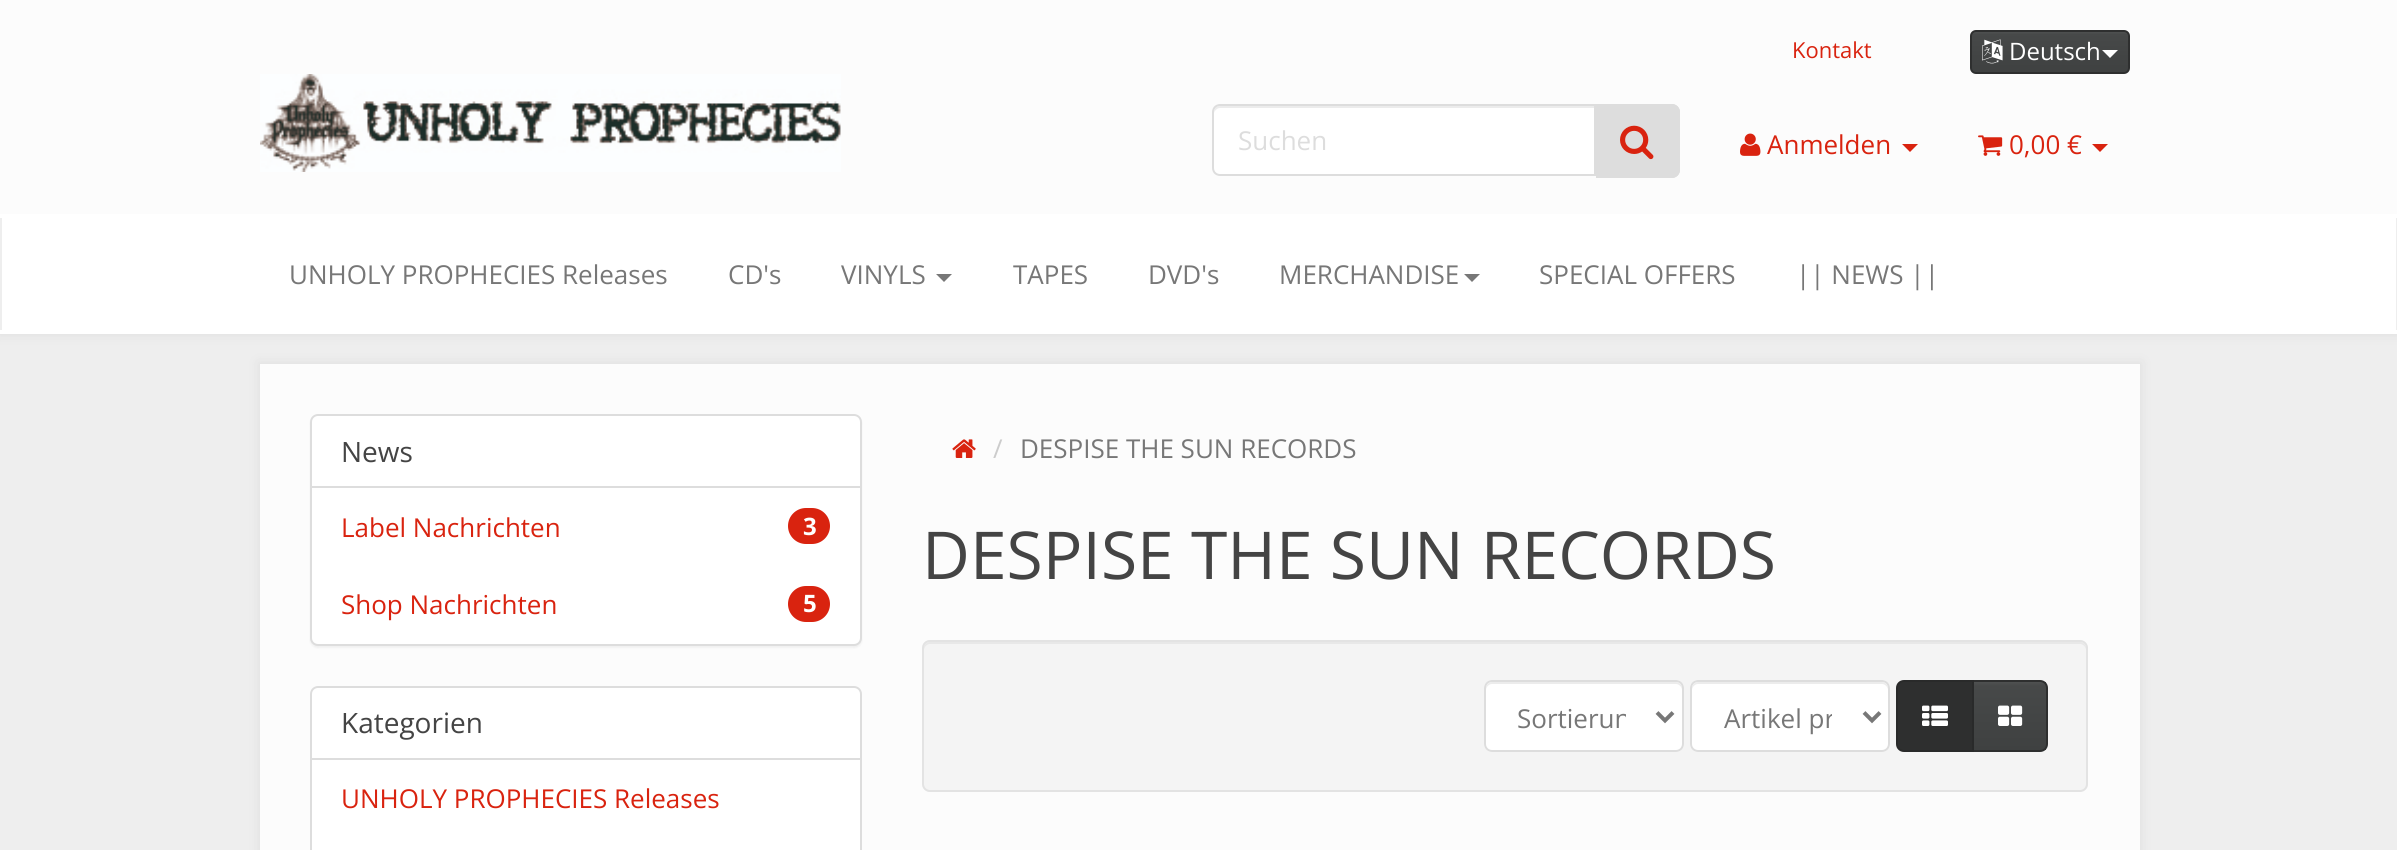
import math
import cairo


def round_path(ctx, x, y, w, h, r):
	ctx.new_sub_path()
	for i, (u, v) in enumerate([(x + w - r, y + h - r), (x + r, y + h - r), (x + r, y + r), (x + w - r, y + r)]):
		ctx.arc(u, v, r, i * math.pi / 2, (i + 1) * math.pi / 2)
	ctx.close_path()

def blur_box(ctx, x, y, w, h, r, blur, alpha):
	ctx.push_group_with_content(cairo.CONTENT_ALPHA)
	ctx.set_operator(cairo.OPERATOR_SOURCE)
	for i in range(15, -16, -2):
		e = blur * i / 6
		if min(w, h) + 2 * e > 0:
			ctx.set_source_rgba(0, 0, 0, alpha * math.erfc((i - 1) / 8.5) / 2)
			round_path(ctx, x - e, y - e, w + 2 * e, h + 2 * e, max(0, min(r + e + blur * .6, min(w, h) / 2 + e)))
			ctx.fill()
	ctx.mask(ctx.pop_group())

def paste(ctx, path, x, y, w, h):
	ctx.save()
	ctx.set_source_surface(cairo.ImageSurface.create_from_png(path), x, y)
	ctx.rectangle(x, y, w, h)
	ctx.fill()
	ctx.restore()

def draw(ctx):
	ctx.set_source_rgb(0.933, 0.933, 0.933)
	ctx.paint()
	ctx.set_source_rgb(0.416, 0.416, 0.416)
	blur_box(ctx, -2, -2, 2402, 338, 0, 5, 0.1)
	ctx.set_source_rgb(0.988, 0.988, 0.988)
	ctx.rectangle(0, 0, 2397, 214)
	ctx.fill()
	ctx.select_font_face('Open Sans')
	ctx.set_font_size(22)
	ctx.set_source_rgb(0.851, 0.137, 0.059)
	ctx.move_to(1792, 58)
	ctx.show_text('Kontakt')
	gradient = cairo.LinearGradient(2050, 32, 2050, 72)
	gradient.add_color_stop_rgba(0, 0.31, 0.318, 0.318, 1)
	gradient.add_color_stop_rgba(0.06, 0.278, 0.286, 0.286, 1)
	gradient.add_color_stop_rgba(1, 0.247, 0.255, 0.255, 1)
	ctx.set_source(gradient)
	ctx.rectangle(1972, 32, 156, 40)
	ctx.fill()
	round_path(ctx, 1971, 31, 158, 42, 5)
	ctx.set_source_rgb(0.18, 0.184, 0.184)
	ctx.stroke()
	paste(ctx, 'media/1.png', 1982, 39, 21, 25)
	ctx.set_font_size(24)
	ctx.set_source_rgb(1, 1, 1)
	ctx.move_to(2009, 60)
	ctx.show_text('Deutsch')
	ctx.new_path()
	ctx.move_to(2102, 50)
	ctx.line_to(2118, 50)
	ctx.line_to(2110, 58)
	ctx.close_path()
	ctx.fill()
	paste(ctx, 'media/2.png', 260, 74, 581, 98)
	ctx.new_path()
	ctx.move_to(1220, 104)
	ctx.line_to(1596, 104)
	ctx.line_to(1596, 176)
	ctx.line_to(1220, 176)
	ctx.curve_to(1215.5, 176, 1212, 172.5, 1212, 168)
	ctx.line_to(1212, 112)
	ctx.curve_to(1212, 107.5, 1215.5, 104, 1220, 104)
	ctx.close_path()
	ctx.fill()
	ctx.set_source_rgb(0.925, 0.925, 0.925)
	ctx.new_path()
	ctx.move_to(1220, 108)
	ctx.line_to(1594, 108)
	ctx.line_to(1594, 106)
	ctx.line_to(1220, 106)
	ctx.curve_to(1215, 106, 1214, 110, 1214, 114)
	ctx.curve_to(1214, 111, 1217, 108, 1220, 108)
	ctx.close_path()
	ctx.fill()
	ctx.new_path()
	ctx.move_to(1220, 105)
	ctx.line_to(1595, 105)
	ctx.line_to(1595, 175)
	ctx.line_to(1220, 175)
	ctx.curve_to(1216, 175, 1213, 172, 1213, 168)
	ctx.line_to(1213, 112)
	ctx.curve_to(1213, 108, 1216, 105, 1220, 105)
	ctx.close_path()
	ctx.set_source_rgb(0.867, 0.867, 0.867)
	ctx.stroke()
	ctx.set_font_size(26)
	ctx.move_to(1238, 150)
	ctx.show_text('Suchen')
	ctx.new_path()
	ctx.move_to(1596, 104)
	ctx.line_to(1672, 104)
	ctx.curve_to(1676.5, 104, 1680, 107.5, 1680, 112)
	ctx.line_to(1680, 170)
	ctx.curve_to(1680, 174.5, 1676.5, 178, 1672, 178)
	ctx.line_to(1596, 178)
	ctx.close_path()
	ctx.fill()
	ctx.set_fill_rule(cairo.FILL_RULE_EVEN_ODD)
	ctx.new_path()
	ctx.move_to(1596, 104)
	ctx.line_to(1672, 104)
	ctx.curve_to(1676, 104, 1680, 108, 1680, 112)
	ctx.line_to(1680, 170)
	ctx.curve_to(1680, 174, 1676, 178, 1672, 178)
	ctx.line_to(1596, 178)
	ctx.close_path()
	ctx.move_to(1596, 106)
	ctx.line_to(1672, 106)
	ctx.curve_to(1675, 106, 1678, 109, 1678, 112)
	ctx.line_to(1678, 170)
	ctx.curve_to(1678, 173, 1675, 176, 1672, 176)
	ctx.line_to(1596, 176)
	ctx.close_path()
	ctx.fill()
	paste(ctx, 'media/3.png', 1620, 125, 34, 35)
	paste(ctx, 'media/4.png', 1740, 133, 21, 23)
	ctx.set_source_rgb(0.851, 0.137, 0.059)
	ctx.move_to(1767, 154)
	ctx.show_text('Anmelden')
	ctx.set_fill_rule(cairo.FILL_RULE_WINDING)
	ctx.new_path()
	ctx.move_to(1902, 144)
	ctx.line_to(1918, 144)
	ctx.line_to(1910, 152)
	ctx.close_path()
	ctx.fill()
	paste(ctx, 'media/5.png', 1978, 135, 25, 21)
	ctx.move_to(2009, 154)
	ctx.show_text('0,00 €')
	ctx.new_path()
	ctx.move_to(2092, 144)
	ctx.line_to(2108, 144)
	ctx.line_to(2100, 152)
	ctx.close_path()
	ctx.fill()
	ctx.set_source_rgb(1, 1, 1)
	ctx.rectangle(0, 214, 2397, 120)
	ctx.fill()
	ctx.set_source_rgb(0.933, 0.933, 0.933)
	ctx.rectangle(2396, 218, 1, 112)
	ctx.rectangle(0, 218, 2, 112)
	ctx.fill()
	ctx.set_source_rgb(0.467, 0.467, 0.467)
	for x, y, s in [
		(289, 284, 'UNHOLY PROPHECIES Releases'),
		(728, 284, 'CD\'s'),
		(841, 284, 'VINYLS'),
	]:
		ctx.move_to(x, y)
		ctx.show_text(s)
	ctx.new_path()
	ctx.move_to(936, 274)
	ctx.line_to(952, 274)
	ctx.line_to(944, 282)
	ctx.close_path()
	ctx.fill()
	for x, y, s in [
		(1013, 284, 'TAPES'),
		(1148, 284, 'DVD\'s'),
		(1279, 284, 'MERCHANDISE'),
	]:
		ctx.move_to(x, y)
		ctx.show_text(s)
	ctx.new_path()
	ctx.move_to(1464, 274)
	ctx.line_to(1480, 274)
	ctx.line_to(1472, 282)
	ctx.close_path()
	ctx.fill()
	ctx.move_to(1539, 284)
	ctx.show_text('SPECIAL OFFERS')
	ctx.move_to(1796, 284)
	ctx.show_text('|| NEWS ||')
	ctx.set_source_rgb(0.416, 0.416, 0.416)
	blur_box(ctx, 258, 362, 1884, 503, 0, 5, 0.1)
	ctx.set_source_rgb(0.988, 0.988, 0.988)
	ctx.rectangle(260, 364, 1880, 486)
	ctx.fill()
	ctx.set_source_rgb(0, 0, 0)
	blur_box(ctx, 310, 416, 552, 232, 8, 1, 0.05)
	ctx.set_source_rgb(1, 1, 1)
	round_path(ctx, 311, 415, 550, 230, 7)
	ctx.fill_preserve()
	ctx.set_source_rgb(0.867, 0.867, 0.867)
	ctx.stroke()
	ctx.rectangle(312, 486, 548, 2)
	ctx.fill()
	ctx.set_font_size(28)
	ctx.set_source_rgb(0.267, 0.267, 0.267)
	ctx.move_to(341, 462)
	ctx.show_text('News')
	ctx.set_font_size(26)
	ctx.set_source_rgb(0.851, 0.137, 0.059)
	ctx.move_to(341, 537)
	ctx.show_text('Label Nachrichten')
	round_path(ctx, 788, 508, 42, 36, 18)
	ctx.fill()
	ctx.select_font_face('Open Sans', cairo.FONT_SLANT_NORMAL, cairo.FONT_WEIGHT_BOLD)
	ctx.set_font_size(24)
	ctx.set_source_rgb(1, 1, 1)
	ctx.move_to(803, 535)
	ctx.show_text('3')
	ctx.select_font_face('Open Sans')
	ctx.set_font_size(26)
	ctx.set_source_rgb(0.851, 0.137, 0.059)
	ctx.move_to(341, 614)
	ctx.show_text('Shop Nachrichten')
	round_path(ctx, 788, 586, 42, 36, 18)
	ctx.fill()
	ctx.select_font_face('Open Sans', cairo.FONT_SLANT_NORMAL, cairo.FONT_WEIGHT_BOLD)
	ctx.set_font_size(24)
	ctx.set_source_rgb(1, 1, 1)
	ctx.move_to(803, 612)
	ctx.show_text('5')
	round_path(ctx, 311, 687, 550, 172, 7)
	ctx.fill_preserve()
	ctx.set_source_rgb(0.867, 0.867, 0.867)
	ctx.stroke()
	ctx.rectangle(312, 758, 548, 2)
	ctx.fill()
	ctx.select_font_face('Open Sans')
	ctx.set_font_size(28)
	ctx.set_source_rgb(0.267, 0.267, 0.267)
	ctx.move_to(341, 733)
	ctx.show_text('Kategorien')
	ctx.set_font_size(26)
	ctx.set_source_rgb(0.851, 0.137, 0.059)
	ctx.move_to(341, 808)
	ctx.show_text('UNHOLY PROPHECIES Releases')
	paste(ctx, 'media/6.png', 952, 439, 24, 19)
	ctx.set_source_rgb(0.8, 0.8, 0.8)
	ctx.move_to(993, 458)
	ctx.show_text('/')
	ctx.set_source_rgb(0.467, 0.467, 0.467)
	ctx.move_to(1020, 458)
	ctx.show_text('DESPISE THE SUN RECORDS')
	ctx.set_font_size(66)
	ctx.set_source_rgb(0.267, 0.267, 0.267)
	ctx.move_to(922, 579)
	ctx.show_text('DESPISE THE SUN RECORDS')
	ctx.set_source_rgb(0.957, 0.957, 0.957)
	round_path(ctx, 922, 640, 1166, 152, 8)
	ctx.fill()
	ctx.set_source_rgb(0.91, 0.91, 0.91)
	ctx.new_path()
	ctx.move_to(930, 644)
	ctx.line_to(2080, 644)
	ctx.curve_to(2083, 644, 2086, 647, 2086, 650)
	ctx.line_to(2086, 648)
	ctx.curve_to(2086, 645, 2083, 642, 2080, 642)
	ctx.line_to(930, 642)
	ctx.curve_to(927, 642, 924, 645, 924, 648)
	ctx.line_to(924, 650)
	ctx.curve_to(924, 647, 927, 644, 930, 644)
	ctx.close_path()
	ctx.fill()
	round_path(ctx, 923, 641, 1164, 150, 7)
	ctx.set_source_rgb(0.89, 0.89, 0.89)
	ctx.stroke()
	ctx.set_source_rgb(1, 1, 1)
	round_path(ctx, 1484, 680, 200, 72, 8)
	ctx.fill()
	ctx.set_source_rgb(0.925, 0.925, 0.925)
	ctx.new_path()
	ctx.move_to(1492, 684)
	ctx.line_to(1676, 684)
	ctx.curve_to(1679, 684, 1682, 687, 1682, 690)
	ctx.line_to(1682, 688)
	ctx.curve_to(1682, 685, 1679, 682, 1676, 682)
	ctx.line_to(1492, 682)
	ctx.curve_to(1489, 682, 1486, 685, 1486, 688)
	ctx.line_to(1486, 690)
	ctx.curve_to(1486, 687, 1489, 684, 1492, 684)
	ctx.close_path()
	ctx.fill()
	round_path(ctx, 1485, 681, 198, 70, 7)
	ctx.set_source_rgb(0.867, 0.867, 0.867)
	ctx.stroke()
	ctx.new_path()
	ctx.move_to(1657, 712.5)
	ctx.line_to(1665, 720.5)
	ctx.line_to(1673, 712.5)
	ctx.set_source_rgb(0.467, 0.467, 0.467)
	ctx.set_line_width(4)
	ctx.stroke()
	ctx.save()
	ctx.rectangle(1518, 698, 108, 40)
	ctx.clip()
	ctx.set_font_size(26)
	ctx.move_to(1517, 728)
	ctx.show_text('Sortierun')
	ctx.restore()
	ctx.set_source_rgb(1, 1, 1)
	round_path(ctx, 1690, 680, 200, 72, 8)
	ctx.fill()
	ctx.set_source_rgb(0.925, 0.925, 0.925)
	ctx.new_path()
	ctx.move_to(1698, 684)
	ctx.line_to(1882, 684)
	ctx.curve_to(1885, 684, 1888, 687, 1888, 690)
	ctx.line_to(1888, 688)
	ctx.curve_to(1888, 685, 1885, 682, 1882, 682)
	ctx.line_to(1698, 682)
	ctx.curve_to(1695, 682, 1692, 685, 1692, 688)
	ctx.line_to(1692, 690)
	ctx.curve_to(1692, 687, 1695, 684, 1698, 684)
	ctx.close_path()
	ctx.fill()
	round_path(ctx, 1691, 681, 198, 70, 7)
	ctx.set_source_rgb(0.867, 0.867, 0.867)
	ctx.set_line_width(2)
	ctx.stroke()
	ctx.new_path()
	ctx.move_to(1864, 712.5)
	ctx.line_to(1872, 720.5)
	ctx.line_to(1880, 712.5)
	ctx.set_source_rgb(0.467, 0.467, 0.467)
	ctx.set_line_width(4)
	ctx.stroke()
	ctx.save()
	ctx.rectangle(1724, 698, 108, 40)
	ctx.clip()
	ctx.set_font_size(26)
	ctx.move_to(1724, 728)
	ctx.show_text('Artikel pr')
	ctx.restore()
	gradient = cairo.LinearGradient(2010, 682, 2010, 750)
	gradient.add_color_stop_rgba(0, 0.31, 0.318, 0.318, 1)
	gradient.add_color_stop_rgba(0.06, 0.278, 0.286, 0.286, 1)
	gradient.add_color_stop_rgba(1, 0.247, 0.255, 0.255, 1)
	ctx.set_source(gradient)
	ctx.rectangle(1974, 682, 72, 68)
	ctx.fill()
	ctx.new_path()
	ctx.move_to(1973, 681)
	ctx.line_to(2040, 681)
	ctx.curve_to(2044, 681, 2047, 684, 2047, 688)
	ctx.line_to(2047, 744)
	ctx.curve_to(2047, 748, 2044, 751, 2040, 751)
	ctx.line_to(1973, 751)
	ctx.close_path()
	ctx.set_source_rgb(0.18, 0.184, 0.184)
	ctx.set_line_width(2)
	ctx.stroke()
	ctx.new_path()
	ctx.move_to(1904, 681)
	ctx.line_to(1973, 681)
	ctx.line_to(1973, 751)
	ctx.line_to(1904, 751)
	ctx.curve_to(1900, 751, 1897, 748, 1897, 744)
	ctx.line_to(1897, 688)
	ctx.curve_to(1897, 684, 1900, 681, 1904, 681)
	ctx.close_path()
	ctx.fill_preserve()
	ctx.set_source_rgb(0.161, 0.165, 0.165)
	ctx.stroke()
	paste(ctx, 'media/7.png', 1922, 705, 26, 21)
	paste(ctx, 'media/8.png', 1998, 705, 25, 21)


surface = cairo.ImageSurface(cairo.FORMAT_RGB24, 2397, 850)
ctx = cairo.Context(surface)
options = cairo.FontOptions()
options.set_hint_metrics(cairo.HINT_METRICS_OFF)
options.set_hint_style(cairo.HINT_STYLE_NONE)
ctx.set_font_options(options)
ctx.set_miter_limit(4)
draw(ctx)
surface.write_to_png('image.png')
